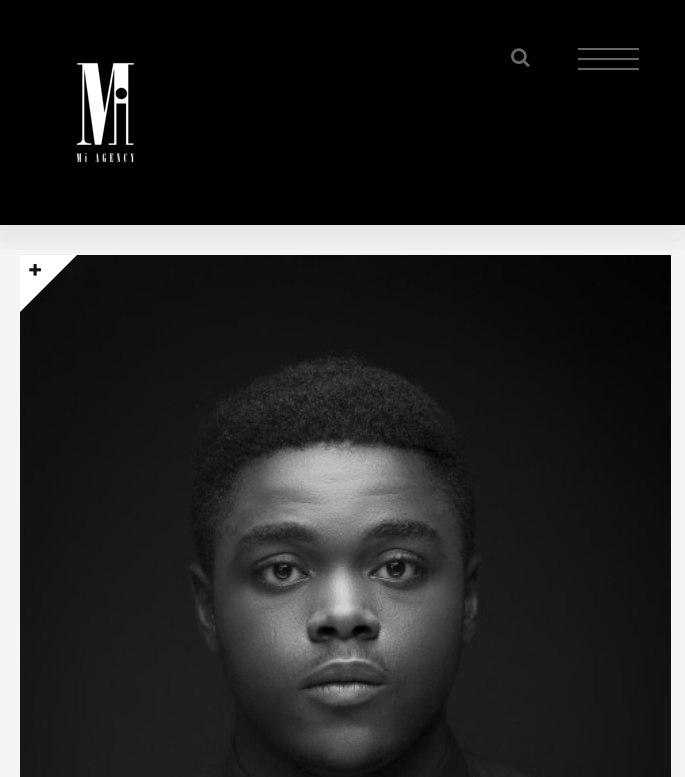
import math
import cairo


def round_path(ctx, x, y, w, h, r):
	ctx.new_sub_path()
	for i, (u, v) in enumerate([(x + w - r, y + h - r), (x + r, y + h - r), (x + r, y + r), (x + w - r, y + r)]):
		ctx.arc(u, v, r, i * math.pi / 2, (i + 1) * math.pi / 2)
	ctx.close_path()

def blur_box(ctx, x, y, w, h, r, blur, alpha):
	ctx.push_group_with_content(cairo.CONTENT_ALPHA)
	ctx.set_operator(cairo.OPERATOR_SOURCE)
	for i in range(15, -16, -2):
		e = blur * i / 6
		if min(w, h) + 2 * e > 0:
			ctx.set_source_rgba(0, 0, 0, alpha * math.erfc((i - 1) / 8.5) / 2)
			round_path(ctx, x - e, y - e, w + 2 * e, h + 2 * e, max(0, min(r + e + blur * .6, min(w, h) / 2 + e)))
			ctx.fill()
	ctx.mask(ctx.pop_group())

def paste(ctx, path, x, y, w, h):
	ctx.save()
	ctx.set_source_surface(cairo.ImageSurface.create_from_png(path), x, y)
	ctx.rectangle(x, y, w, h)
	ctx.fill()
	ctx.restore()

def draw(ctx):
	ctx.set_source_rgb(0.957, 0.957, 0.957)
	ctx.paint()
	ctx.set_source_rgb(0, 0, 0)
	ctx.rectangle(0, 0, 685, 225)
	ctx.fill()
	paste(ctx, 'media/3.png', 20, 255, 651, 522)
	ctx.save()
	ctx.rectangle(20, 255, 651, 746)
	ctx.clip()
	ctx.set_source_rgb(1, 1, 1)
	ctx.new_path()
	ctx.move_to(-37, 255)
	ctx.line_to(20, 198)
	ctx.line_to(77, 255)
	ctx.line_to(20, 312)
	ctx.close_path()
	ctx.fill()
	ctx.restore()
	paste(ctx, 'media/4.png', 29, 263, 12, 13)
	ctx.save()
	ctx.rectangle(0, 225, 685, 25)
	ctx.clip()
	ctx.set_source_rgb(0, 0, 0)
	blur_box(ctx, -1, 2, 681, 221, 0, 25, 0.14)
	ctx.restore()
	paste(ctx, 'media/1.png', 511, 48, 19, 19)
	ctx.set_source_rgb(0.4, 0.4, 0.4)
	ctx.rectangle(578, 48, 61, 2)
	ctx.rectangle(578, 58, 61, 2)
	ctx.rectangle(578, 68, 61, 2)
	ctx.fill()
	paste(ctx, 'media/2.png', 76, 62, 59, 101)


surface = cairo.ImageSurface(cairo.FORMAT_RGB24, 685, 777)
ctx = cairo.Context(surface)
options = cairo.FontOptions()
options.set_hint_metrics(cairo.HINT_METRICS_OFF)
options.set_hint_style(cairo.HINT_STYLE_NONE)
ctx.set_font_options(options)
ctx.set_miter_limit(4)
draw(ctx)
surface.write_to_png('image.png')
